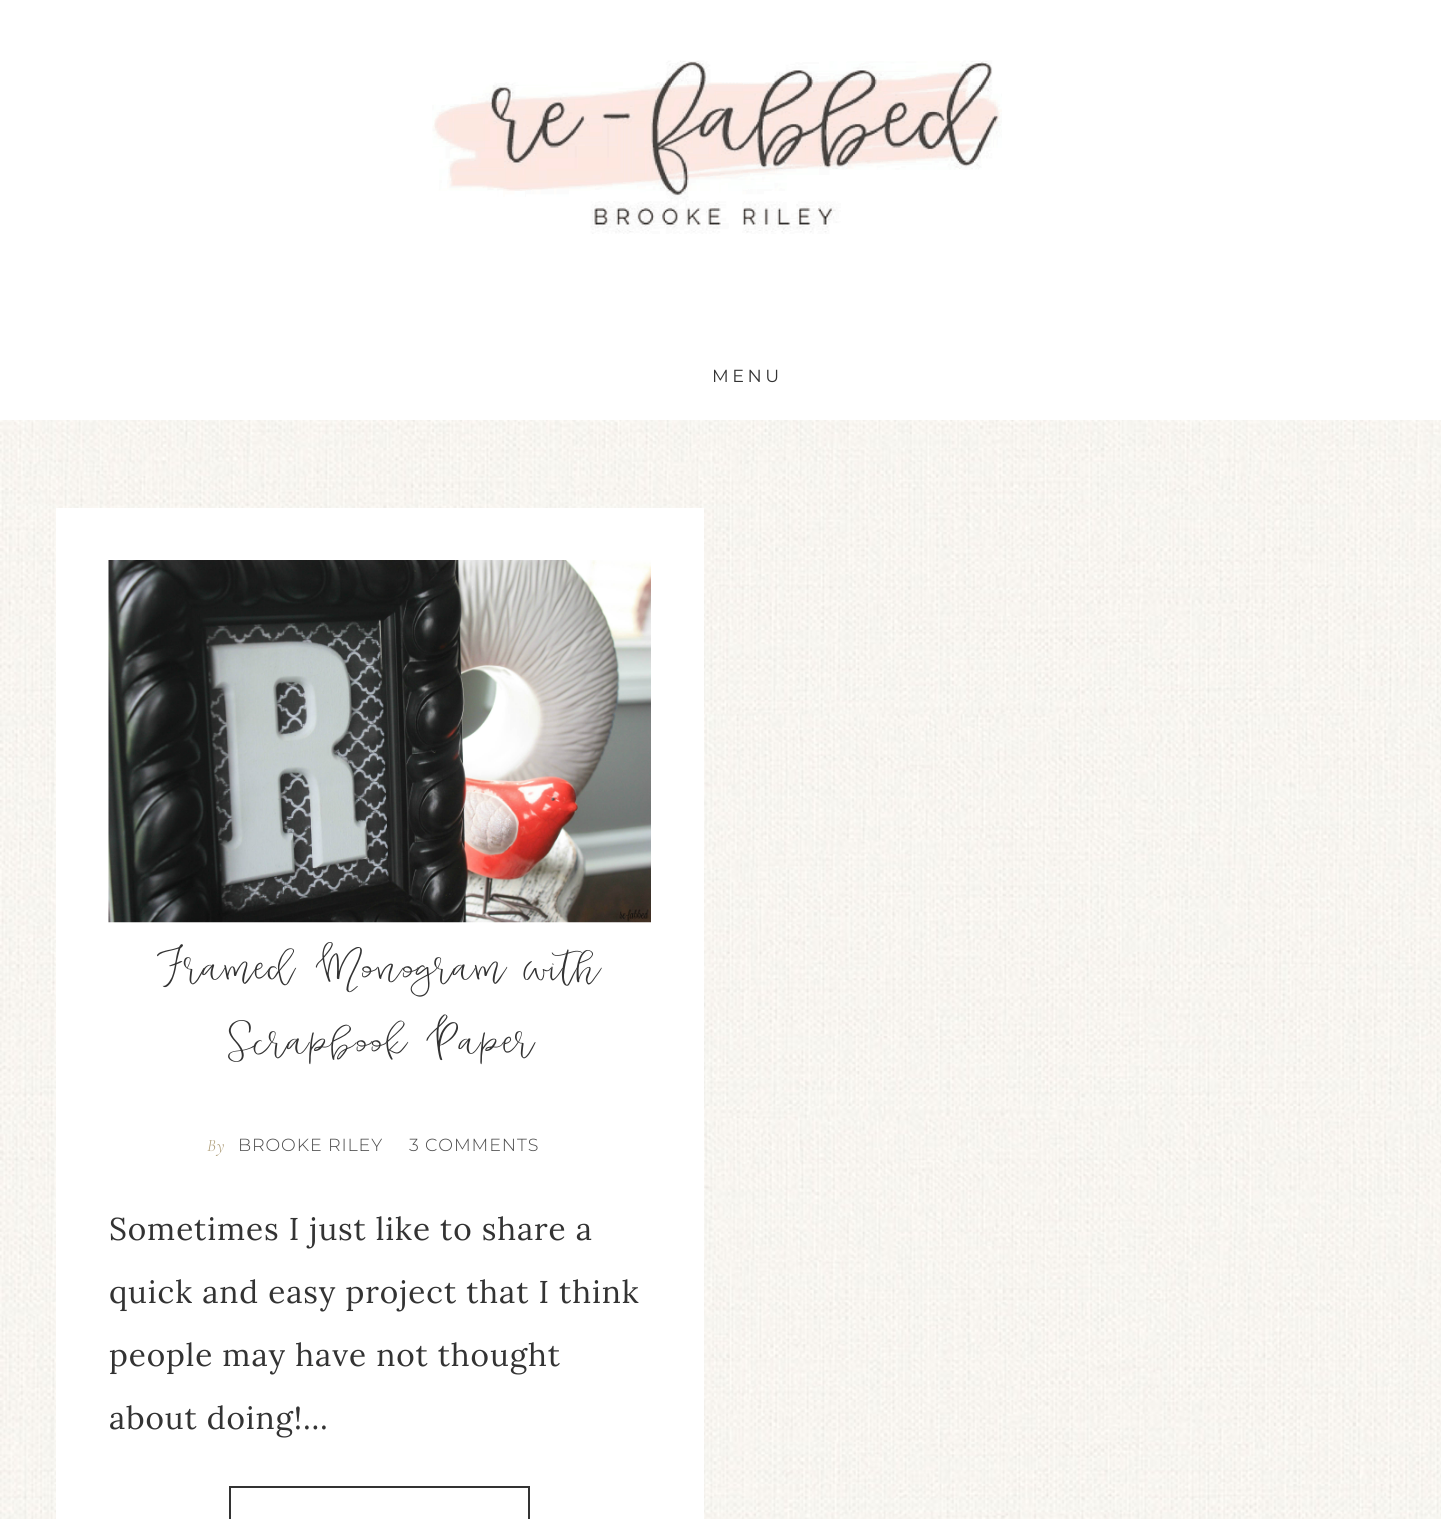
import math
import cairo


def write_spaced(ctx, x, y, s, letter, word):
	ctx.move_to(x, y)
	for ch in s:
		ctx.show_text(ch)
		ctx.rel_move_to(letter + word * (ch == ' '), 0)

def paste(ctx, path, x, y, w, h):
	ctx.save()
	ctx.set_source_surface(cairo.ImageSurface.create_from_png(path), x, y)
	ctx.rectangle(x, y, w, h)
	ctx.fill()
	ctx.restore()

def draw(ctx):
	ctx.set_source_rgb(1, 1, 1)
	ctx.paint()
	paste(ctx, 'media/1.png', 0, 420, 1441, 1099)
	paste(ctx, 'media/2.png', 432, 60, 570, 174)
	ctx.select_font_face('Montserrat')
	ctx.set_font_size(17.5)
	ctx.set_source_rgb(0.2, 0.2, 0.2)
	write_spaced(ctx, 712, 382, 'MENU', 3.5, 0)
	ctx.set_source_rgb(1, 1, 1)
	ctx.rectangle(56, 508, 648, 1011)
	ctx.fill()
	paste(ctx, 'media/3.png', 108, 560, 543, 363)
	ctx.select_font_face('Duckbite')
	ctx.set_font_size(61.25)
	ctx.set_source_rgb(0.2, 0.2, 0.2)
	write_spaced(ctx, 157, 974, 'Framed Monogram with', 0.9, 0)
	write_spaced(ctx, 225, 1048, 'Scrapbook Paper', 0.9, 0)
	ctx.select_font_face('Cormorant Garamond Light', cairo.FONT_SLANT_ITALIC)
	ctx.set_font_size(17.5)
	ctx.set_source_rgb(0.682, 0.616, 0.471)
	write_spaced(ctx, 207, 1151, 'By', 0.9, 0)
	ctx.select_font_face('Montserrat Light')
	ctx.set_source_rgb(0.286, 0.286, 0.286)
	write_spaced(ctx, 238, 1151, 'BROOKE RILEY', 0.9, 0)
	write_spaced(ctx, 409, 1151, '3 COMMENTS', 0.9, 0)
	ctx.select_font_face('Lora')
	ctx.set_font_size(31.5)
	ctx.set_source_rgb(0.2, 0.2, 0.2)
	for x, y, s in [
		(109, 1240, 'Sometimes I just like to share a'),
		(109, 1303, 'quick and easy project that I think'),
		(109, 1366, 'people may have not thought'),
		(109, 1429, 'about doing!…'),
	]:
		write_spaced(ctx, x, y, s, 0.9, 0)
	ctx.rectangle(230, 1487, 299, 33)
	ctx.stroke()


surface = cairo.ImageSurface(cairo.FORMAT_RGB24, 1441, 1519)
ctx = cairo.Context(surface)
options = cairo.FontOptions()
options.set_hint_metrics(cairo.HINT_METRICS_OFF)
options.set_hint_style(cairo.HINT_STYLE_NONE)
ctx.set_font_options(options)
ctx.set_miter_limit(4)
draw(ctx)
surface.write_to_png('image.png')
